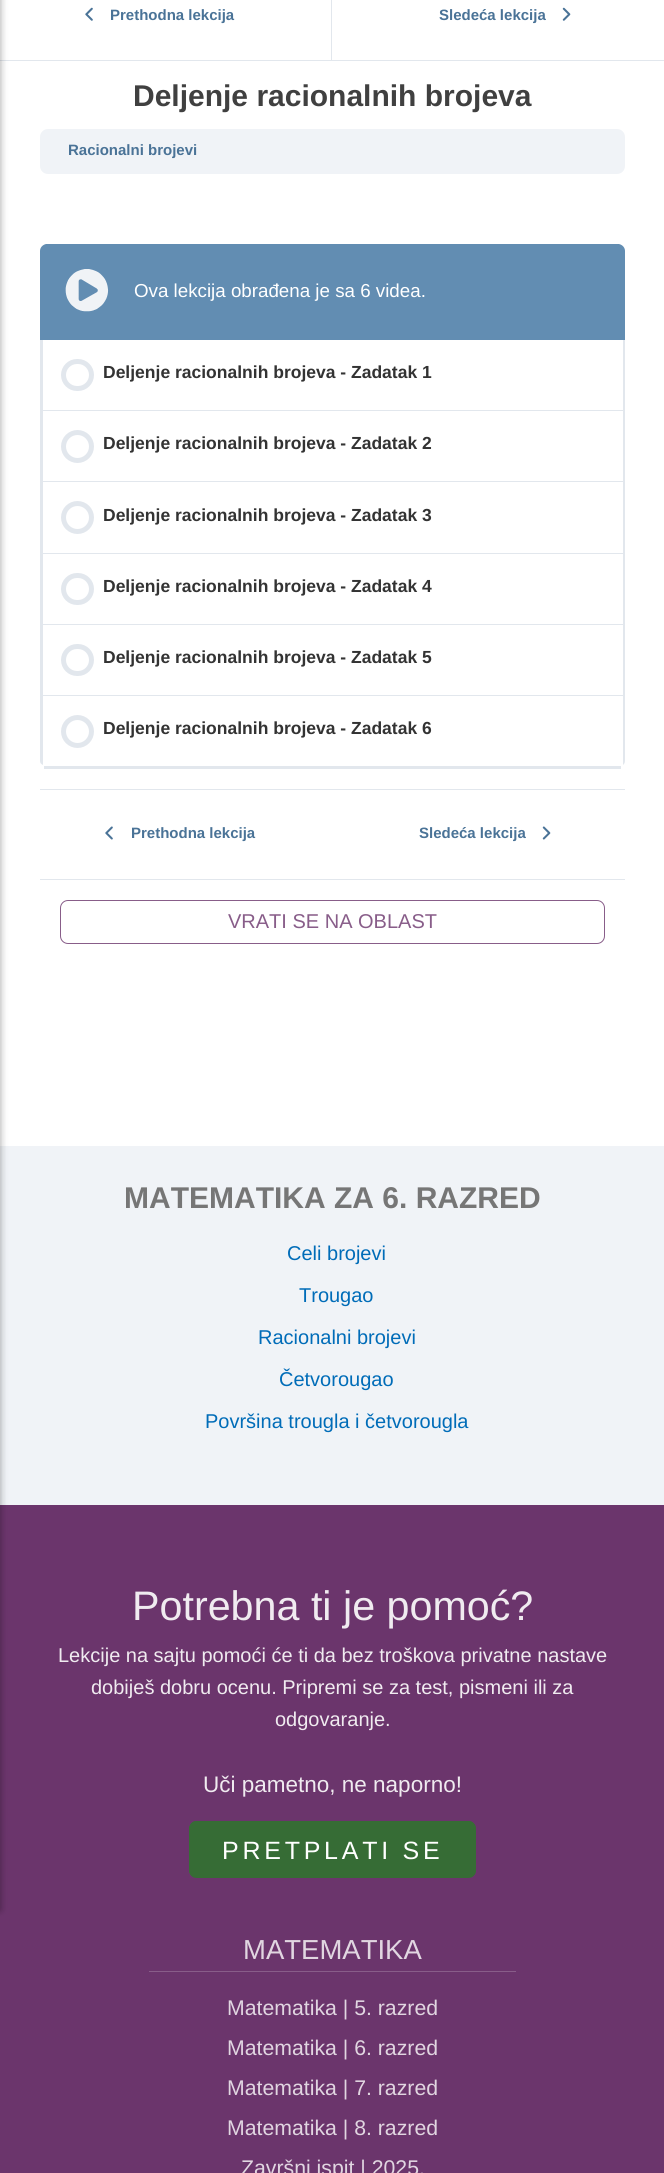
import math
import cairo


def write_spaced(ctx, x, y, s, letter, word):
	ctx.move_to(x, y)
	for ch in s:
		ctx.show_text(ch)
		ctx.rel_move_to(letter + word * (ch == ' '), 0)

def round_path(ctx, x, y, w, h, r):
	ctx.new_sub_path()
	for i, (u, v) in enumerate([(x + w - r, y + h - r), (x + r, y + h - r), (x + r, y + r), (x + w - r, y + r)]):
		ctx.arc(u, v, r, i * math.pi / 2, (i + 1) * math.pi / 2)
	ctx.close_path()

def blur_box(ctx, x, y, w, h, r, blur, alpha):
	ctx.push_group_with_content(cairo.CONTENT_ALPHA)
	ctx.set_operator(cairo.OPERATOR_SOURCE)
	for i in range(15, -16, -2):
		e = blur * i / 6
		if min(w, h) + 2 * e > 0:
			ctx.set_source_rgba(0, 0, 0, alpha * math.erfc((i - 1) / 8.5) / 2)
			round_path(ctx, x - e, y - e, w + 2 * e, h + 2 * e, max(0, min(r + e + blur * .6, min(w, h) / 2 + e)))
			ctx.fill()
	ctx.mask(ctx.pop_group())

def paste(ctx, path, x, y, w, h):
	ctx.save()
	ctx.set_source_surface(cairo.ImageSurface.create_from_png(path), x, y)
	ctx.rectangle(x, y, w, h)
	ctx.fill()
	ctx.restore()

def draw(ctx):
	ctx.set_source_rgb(1, 1, 1)
	ctx.paint()
	ctx.set_source_rgb(0.886, 0.906, 0.929)
	ctx.rectangle(0, 60, 664, 1)
	ctx.fill()
	ctx.set_source_rgb(0.941, 0.953, 0.965)
	ctx.rectangle(0, 1146, 664, 359)
	ctx.fill()
	ctx.set_source_rgb(0.42, 0.208, 0.424)
	ctx.rectangle(0, 1505, 664, 668)
	ctx.fill()
	ctx.set_source_rgb(0, 0, 0)
	blur_box(ctx, -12, -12, 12, 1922, 0, 4, 0.23)
	blur_box(ctx, -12, -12, 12, 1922, 0, 4, 0.16)
	ctx.set_source_rgb(0.886, 0.906, 0.929)
	ctx.rectangle(331, 0, 1, 60)
	ctx.fill()
	paste(ctx, 'media/1.png', 85, 7, 8, 14)
	ctx.select_font_face('Liberation Sans', cairo.FONT_SLANT_NORMAL, cairo.FONT_WEIGHT_BOLD)
	ctx.set_font_size(15)
	ctx.set_source_rgb(0.29, 0.451, 0.592)
	ctx.move_to(110, 20)
	ctx.show_text('Prethodna lekcija')
	ctx.move_to(439, 20)
	ctx.show_text('Sledeća lekcija')
	paste(ctx, 'media/2.png', 562, 7, 9, 14)
	ctx.set_font_size(30)
	ctx.set_source_rgb(0.251, 0.251, 0.251)
	ctx.move_to(133, 106)
	ctx.show_text('Deljenje racionalnih brojeva')
	ctx.set_source_rgb(0.941, 0.953, 0.965)
	round_path(ctx, 40, 129, 585, 45, 8)
	ctx.fill()
	ctx.set_font_size(15)
	ctx.set_source_rgb(0.29, 0.451, 0.592)
	ctx.move_to(68, 155)
	ctx.show_text('Racionalni brojevi')
	ctx.set_source_rgb(0.886, 0.906, 0.929)
	ctx.rectangle(44, 766, 577, 3)
	ctx.fill()
	ctx.set_source_rgb(0.384, 0.553, 0.698)
	ctx.new_path()
	ctx.move_to(40, 251)
	ctx.line_to(40, 340)
	ctx.line_to(625, 340)
	ctx.line_to(625, 251)
	ctx.curve_to(625, 248, 623, 245, 619, 244)
	ctx.line_to(46, 244)
	ctx.curve_to(42, 245, 40, 248, 40, 251)
	ctx.close_path()
	ctx.fill()
	paste(ctx, 'media/3.png', 65, 269, 44, 43)
	ctx.select_font_face('Liberation Sans')
	ctx.set_font_size(18.75)
	ctx.set_source_rgb(1, 1, 1)
	ctx.move_to(134, 297)
	ctx.show_text('Ova lekcija obrađena je sa 6 videa.')
	ctx.set_source_rgb(0.886, 0.906, 0.929)
	ctx.new_path()
	ctx.move_to(623, 340)
	ctx.line_to(625, 340)
	ctx.line_to(625, 761)
	ctx.curve_to(625, 763, 624, 764, 623, 765)
	ctx.close_path()
	ctx.fill()
	ctx.new_path()
	ctx.move_to(40, 340)
	ctx.line_to(40, 761)
	ctx.curve_to(40, 763, 41, 764, 43, 765)
	ctx.line_to(43, 340)
	ctx.close_path()
	ctx.fill()
	ctx.rectangle(43, 410, 580, 1)
	ctx.fill()
	round_path(ctx, 63.5, 361.5, 28, 27, 13.5)
	ctx.set_line_width(5)
	ctx.stroke()
	ctx.select_font_face('Liberation Sans', cairo.FONT_SLANT_NORMAL, cairo.FONT_WEIGHT_BOLD)
	ctx.set_font_size(17.5)
	ctx.set_source_rgb(0.2, 0.2, 0.2)
	ctx.move_to(103, 378)
	ctx.show_text('Deljenje racionalnih brojeva - Zadatak 1')
	ctx.set_source_rgb(0.886, 0.906, 0.929)
	ctx.rectangle(43, 481, 580, 1)
	ctx.fill()
	ctx.arc(77.5, 446.5, 14, 0, 2 * math.pi)
	ctx.stroke()
	ctx.set_source_rgb(0.2, 0.2, 0.2)
	ctx.move_to(103, 449)
	ctx.show_text('Deljenje racionalnih brojeva - Zadatak 2')
	ctx.set_source_rgb(0.886, 0.906, 0.929)
	ctx.rectangle(43, 553, 580, 1)
	ctx.fill()
	ctx.arc(77.5, 517.5, 14, 0, 2 * math.pi)
	ctx.stroke()
	ctx.set_source_rgb(0.2, 0.2, 0.2)
	ctx.move_to(103, 521)
	ctx.show_text('Deljenje racionalnih brojeva - Zadatak 3')
	ctx.set_source_rgb(0.886, 0.906, 0.929)
	ctx.rectangle(43, 624, 580, 1)
	ctx.fill()
	round_path(ctx, 63.5, 575.5, 28, 27, 13.5)
	ctx.stroke()
	ctx.set_source_rgb(0.2, 0.2, 0.2)
	ctx.move_to(103, 592)
	ctx.show_text('Deljenje racionalnih brojeva - Zadatak 4')
	ctx.set_source_rgb(0.886, 0.906, 0.929)
	ctx.rectangle(43, 695, 580, 1)
	ctx.fill()
	round_path(ctx, 63.5, 646.5, 28, 27, 13.5)
	ctx.stroke()
	ctx.set_source_rgb(0.2, 0.2, 0.2)
	ctx.move_to(103, 663)
	ctx.show_text('Deljenje racionalnih brojeva - Zadatak 5')
	ctx.new_path()
	ctx.arc(77.5, 731.5, 14, 0, 2 * math.pi)
	ctx.set_source_rgb(0.886, 0.906, 0.929)
	ctx.stroke()
	ctx.set_source_rgb(0.2, 0.2, 0.2)
	ctx.move_to(103, 734)
	ctx.show_text('Deljenje racionalnih brojeva - Zadatak 6')
	ctx.set_source_rgb(0.886, 0.906, 0.929)
	ctx.rectangle(40, 789, 585, 1)
	ctx.fill()
	ctx.rectangle(40, 879, 585, 1)
	ctx.fill()
	paste(ctx, 'media/4.png', 105, 826, 8, 14)
	ctx.set_font_size(15)
	ctx.set_source_rgb(0.29, 0.451, 0.592)
	ctx.move_to(131, 838)
	ctx.show_text('Prethodna lekcija')
	ctx.move_to(419, 838)
	ctx.show_text('Sledeća lekcija')
	paste(ctx, 'media/5.png', 542, 826, 9, 14)
	round_path(ctx, 60.5, 900.5, 544, 43, 7.5)
	ctx.set_source_rgb(0.533, 0.365, 0.537)
	ctx.set_line_width(1)
	ctx.stroke()
	ctx.select_font_face('Liberation Sans')
	ctx.set_font_size(20)
	ctx.move_to(228, 928)
	ctx.show_text('VRATI SE NA OBLAST')
	ctx.select_font_face('Liberation Sans', cairo.FONT_SLANT_NORMAL, cairo.FONT_WEIGHT_BOLD)
	ctx.set_font_size(30)
	ctx.set_source_rgb(0.463, 0.463, 0.463)
	ctx.move_to(124, 1208)
	ctx.show_text('MATEMATIKA ZA 6. RAZRED')
	ctx.select_font_face('Liberation Sans')
	ctx.set_font_size(20)
	ctx.set_source_rgb(0, 0.424, 0.722)
	for x, y, s in [
		(287, 1260, 'Celi brojevi'),
		(299, 1302, 'Trougao'),
		(258, 1344, 'Racionalni brojevi'),
		(279, 1386, 'Četvorougao'),
		(205, 1428, 'Površina trougla i četvorougla'),
	]:
		ctx.move_to(x, y)
		ctx.show_text(s)
	ctx.set_font_size(41.25)
	ctx.set_source_rgb(0.941, 0.918, 0.941)
	ctx.move_to(132, 1620)
	ctx.show_text('Potrebna ti je pomoć?')
	ctx.set_font_size(20)
	for x, y, s in [
		(58, 1662, 'Lekcije na sajtu pomoći će ti da bez troškova privatne nastave'),
		(91, 1694, 'dobiješ dobru ocenu. Pripremi se za test, pismeni ili za'),
		(275, 1726, 'odgovaranje.'),
	]:
		ctx.move_to(x, y)
		ctx.show_text(s)
	ctx.set_font_size(22.5)
	ctx.move_to(203, 1792)
	ctx.show_text('Uči pametno, ne naporno!')
	ctx.set_source_rgb(0.212, 0.424, 0.208)
	round_path(ctx, 189, 1821, 287, 57, 8)
	ctx.fill()
	ctx.set_fill_rule(cairo.FILL_RULE_EVEN_ODD)
	ctx.new_path()
	ctx.move_to(196, 1821)
	ctx.line_to(469, 1821)
	ctx.curve_to(473, 1821, 476, 1825, 476, 1829)
	ctx.line_to(476, 1870)
	ctx.curve_to(476, 1874, 473, 1878, 469, 1878)
	ctx.line_to(196, 1878)
	ctx.curve_to(192, 1878, 189, 1874, 189, 1870)
	ctx.line_to(189, 1829)
	ctx.curve_to(189, 1825, 192, 1821, 196, 1821)
	ctx.close_path()
	ctx.move_to(196, 1822)
	ctx.line_to(469, 1822)
	ctx.curve_to(472, 1822, 475, 1825, 475, 1829)
	ctx.line_to(475, 1870)
	ctx.curve_to(475, 1874, 472, 1878, 469, 1878)
	ctx.line_to(196, 1878)
	ctx.curve_to(193, 1878, 190, 1874, 190, 1870)
	ctx.line_to(190, 1829)
	ctx.curve_to(190, 1825, 193, 1822, 196, 1822)
	ctx.close_path()
	ctx.fill()
	ctx.set_font_size(25)
	ctx.set_source_rgb(1, 1, 1)
	write_spaced(ctx, 222, 1859, 'PRETPLATI SE', 3.75, 0)
	ctx.set_source_rgb(0.533, 0.365, 0.537)
	ctx.rectangle(149, 1971, 367, 1)
	ctx.fill()
	ctx.set_font_size(27.5)
	ctx.set_source_rgb(0.882, 0.839, 0.882)
	ctx.move_to(243, 1959)
	ctx.show_text('MATEMATIKA')
	ctx.set_font_size(21.25)
	for x, y, s in [
		(227, 2015, 'Matematika | 5. razred'),
		(227, 2055, 'Matematika | 6. razred'),
		(227, 2095, 'Matematika | 7. razred'),
		(227, 2135, 'Matematika | 8. razred'),
		(241, 2175, 'Završni ispit | 2025.'),
	]:
		ctx.move_to(x, y)
		ctx.show_text(s)


surface = cairo.ImageSurface(cairo.FORMAT_RGB24, 664, 2173)
ctx = cairo.Context(surface)
options = cairo.FontOptions()
options.set_hint_metrics(cairo.HINT_METRICS_OFF)
options.set_hint_style(cairo.HINT_STYLE_NONE)
ctx.set_font_options(options)
ctx.set_miter_limit(4)
draw(ctx)
surface.write_to_png('image.png')
